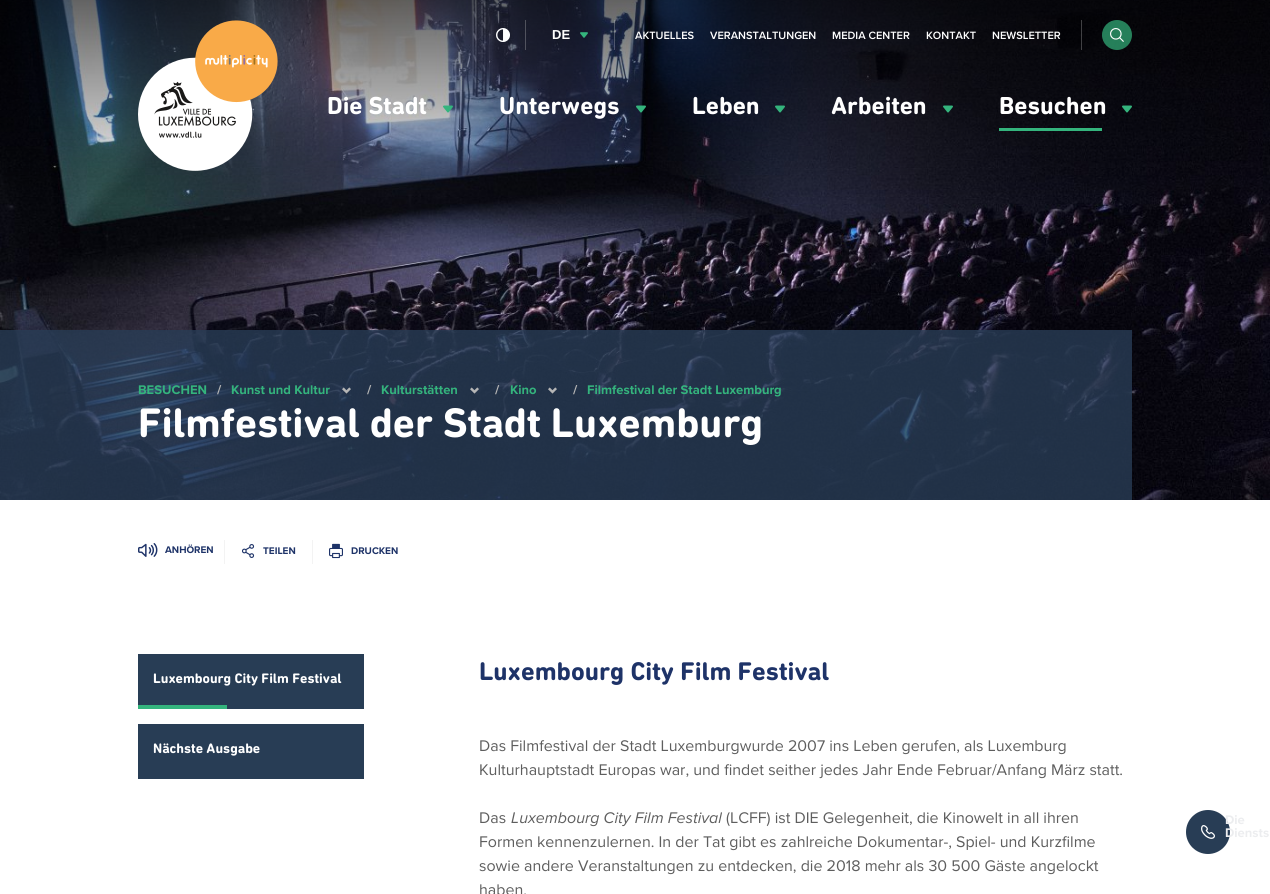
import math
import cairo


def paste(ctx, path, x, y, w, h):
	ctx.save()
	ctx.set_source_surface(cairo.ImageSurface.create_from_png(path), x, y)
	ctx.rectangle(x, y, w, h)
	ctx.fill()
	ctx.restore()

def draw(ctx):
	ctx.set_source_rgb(1, 1, 1)
	ctx.paint()
	paste(ctx, 'media/1.png', 0, 0, 1270, 500)
	paste(ctx, 'media/2.png', 138, 20, 140, 151)
	ctx.set_source_rgba(0.808, 0.808, 0.808, 0.3)
	ctx.rectangle(525, 20, 1, 30)
	ctx.fill()
	paste(ctx, 'media/3.png', 496, 28, 14, 14)
	ctx.rectangle(614, 20, 1, 30)
	ctx.fill()
	ctx.select_font_face('Liberation Sans', cairo.FONT_SLANT_NORMAL, cairo.FONT_WEIGHT_BOLD)
	ctx.set_font_size(13)
	ctx.set_source_rgb(1, 1, 1)
	ctx.move_to(552, 39)
	ctx.show_text('DE')
	paste(ctx, 'media/4.png', 580, 32, 8, 6)
	ctx.select_font_face('Proxima Nova SemiBold')
	ctx.set_font_size(11)
	for x, y, s in [
		(635, 39, 'AKTUELLES'),
		(710, 39, 'VERANSTALTUNGEN'),
		(832, 39, 'MEDIA CENTER'),
		(926, 39, 'KONTAKT'),
		(992, 39, 'NEWSLETTER'),
	]:
		ctx.move_to(x, y)
		ctx.show_text(s)
	ctx.set_source_rgba(0.808, 0.808, 0.808, 0.3)
	ctx.rectangle(1081, 20, 1, 30)
	ctx.fill()
	ctx.set_source_rgba(0.204, 0.706, 0.49, 0.7)
	ctx.arc(1117, 35, 15, 0, 2 * math.pi)
	ctx.fill()
	paste(ctx, 'media/5.png', 1110, 28, 14, 14)
	ctx.select_font_face('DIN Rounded')
	ctx.set_font_size(25)
	ctx.set_source_rgb(1, 1, 1)
	ctx.move_to(327, 114)
	ctx.show_text('Die Stadt')
	paste(ctx, 'media/6.png', 443, 105, 10, 8)
	ctx.move_to(499, 114)
	ctx.show_text('Unterwegs')
	paste(ctx, 'media/7.png', 636, 105, 10, 8)
	ctx.move_to(692, 114)
	ctx.show_text('Leben')
	paste(ctx, 'media/8.png', 775, 105, 10, 8)
	ctx.move_to(831, 114)
	ctx.show_text('Arbeiten')
	paste(ctx, 'media/9.png', 943, 105, 10, 8)
	ctx.move_to(999, 114)
	ctx.show_text('Besuchen')
	paste(ctx, 'media/10.png', 1122, 105, 10, 8)
	ctx.set_source_rgb(0.204, 0.706, 0.49)
	ctx.rectangle(999, 128, 103, 3)
	ctx.fill()
	ctx.set_source_rgba(0.157, 0.239, 0.333, 0.8)
	ctx.rectangle(0, 330, 1132, 170)
	ctx.fill()
	ctx.select_font_face('Proxima Nova', cairo.FONT_SLANT_NORMAL, cairo.FONT_WEIGHT_BOLD)
	ctx.set_font_size(13)
	ctx.set_source_rgb(0.204, 0.706, 0.49)
	ctx.move_to(138, 394)
	ctx.show_text('BESUCHEN')
	ctx.set_source_rgb(0.714, 0.714, 0.714)
	ctx.move_to(217, 394)
	ctx.show_text('/')
	ctx.set_source_rgb(0.204, 0.706, 0.49)
	ctx.move_to(231, 394)
	ctx.show_text('Kunst und Kultur')
	paste(ctx, 'media/11.png', 342, 387, 9, 7)
	ctx.set_source_rgb(0.714, 0.714, 0.714)
	ctx.move_to(367, 394)
	ctx.show_text('/')
	ctx.set_source_rgb(0.204, 0.706, 0.49)
	ctx.move_to(381, 394)
	ctx.show_text('Kulturstätten')
	paste(ctx, 'media/12.png', 470, 387, 9, 7)
	ctx.set_source_rgb(0.714, 0.714, 0.714)
	ctx.move_to(495, 394)
	ctx.show_text('/')
	ctx.set_source_rgb(0.204, 0.706, 0.49)
	ctx.move_to(510, 394)
	ctx.show_text('Kino')
	paste(ctx, 'media/13.png', 548, 387, 9, 7)
	ctx.set_source_rgb(0.714, 0.714, 0.714)
	ctx.move_to(573, 394)
	ctx.show_text('/')
	ctx.set_source_rgb(0.204, 0.706, 0.49)
	ctx.move_to(587, 394)
	ctx.show_text('Filmfestival der Stadt Luxemburg')
	ctx.select_font_face('DIN Rounded')
	ctx.set_font_size(42)
	ctx.set_source_rgb(1, 1, 1)
	ctx.move_to(138, 437)
	ctx.show_text('Filmfestival der Stadt Luxemburg')
	paste(ctx, 'media/14.png', 138, 543, 20, 14)
	ctx.select_font_face('Proxima Nova', cairo.FONT_SLANT_NORMAL, cairo.FONT_WEIGHT_BOLD)
	ctx.set_font_size(10)
	ctx.set_source_rgb(0.118, 0.2, 0.408)
	ctx.move_to(165, 553)
	ctx.show_text('ANHÖREN')
	ctx.set_source_rgb(0.953, 0.953, 0.953)
	ctx.rectangle(224, 540, 1, 24)
	ctx.fill()
	paste(ctx, 'media/15.png', 242, 544, 13, 14)
	ctx.set_source_rgb(0.118, 0.2, 0.408)
	ctx.move_to(263, 554)
	ctx.show_text('TEILEN')
	ctx.set_source_rgb(0.953, 0.953, 0.953)
	ctx.rectangle(312, 540, 1, 24)
	ctx.fill()
	paste(ctx, 'media/16.png', 329, 543, 14, 16)
	ctx.set_source_rgb(0.118, 0.2, 0.408)
	ctx.move_to(351, 554)
	ctx.show_text('DRUCKEN')
	ctx.set_source_rgb(0.157, 0.239, 0.333)
	ctx.rectangle(138, 654, 226, 55)
	ctx.fill()
	ctx.select_font_face('DIN Rounded')
	ctx.set_font_size(14)
	ctx.set_source_rgb(1, 1, 1)
	ctx.move_to(153, 683)
	ctx.show_text('Luxembourg City Film Festival')
	ctx.set_source_rgb(0.204, 0.706, 0.49)
	ctx.rectangle(138, 705, 89, 4)
	ctx.fill()
	ctx.set_source_rgb(0.157, 0.239, 0.333)
	ctx.rectangle(138, 724, 226, 55)
	ctx.fill()
	ctx.set_source_rgb(1, 1, 1)
	ctx.move_to(153, 753)
	ctx.show_text('Nächste Ausgabe')
	ctx.set_font_size(26)
	ctx.set_source_rgb(0.118, 0.2, 0.408)
	ctx.move_to(479, 680)
	ctx.show_text('Luxembourg City Film Festival')
	ctx.select_font_face('Proxima Nova')
	ctx.set_font_size(16)
	ctx.set_source_rgb(0.369, 0.369, 0.369)
	for x, y, s in [
		(479, 751, 'Das Filmfestival der Stadt Luxemburgwurde 2007 ins Leben gerufen, als Luxemburg'),
		(479, 775, 'Kulturhauptstadt Europas war, und findet seither jedes Jahr Ende Februar/Anfang März statt.'),
		(479, 823, 'Das'),
	]:
		ctx.move_to(x, y)
		ctx.show_text(s)
	ctx.select_font_face('Proxima Nova', cairo.FONT_SLANT_ITALIC)
	ctx.move_to(511, 823)
	ctx.show_text('Luxembourg City Film Festival')
	ctx.select_font_face('Proxima Nova')
	for x, y, s in [
		(726, 823, '(LCFF) ist DIE Gelegenheit, die Kinowelt in all ihren'),
		(479, 847, 'Formen kennenzulernen. In der Tat gibt es zahlreiche Dokumentar-, Spiel- und Kurzfilme'),
		(479, 871, 'sowie andere Veranstaltungen zu entdecken, die 2018 mehr als 30 500 Gäste angelockt'),
		(479, 895, 'haben.'),
	]:
		ctx.move_to(x, y)
		ctx.show_text(s)
	ctx.set_source_rgb(0.157, 0.239, 0.333)
	ctx.new_path()
	ctx.arc(1208, 832, 22, 0, 2 * math.pi)
	ctx.fill()
	paste(ctx, 'media/17.png', 1201, 825, 14, 14)
	ctx.select_font_face('Proxima Nova', cairo.FONT_SLANT_NORMAL, cairo.FONT_WEIGHT_BOLD)
	ctx.set_font_size(13)
	ctx.set_source_rgb(0.922, 0.929, 0.937)
	ctx.move_to(1225, 824)
	ctx.show_text('Die')
	ctx.move_to(1225, 837)
	ctx.show_text('Diensts')


surface = cairo.ImageSurface(cairo.FORMAT_RGB24, 1270, 894)
ctx = cairo.Context(surface)
options = cairo.FontOptions()
options.set_hint_metrics(cairo.HINT_METRICS_OFF)
options.set_hint_style(cairo.HINT_STYLE_NONE)
ctx.set_font_options(options)
ctx.set_miter_limit(4)
draw(ctx)
surface.write_to_png('image.png')
